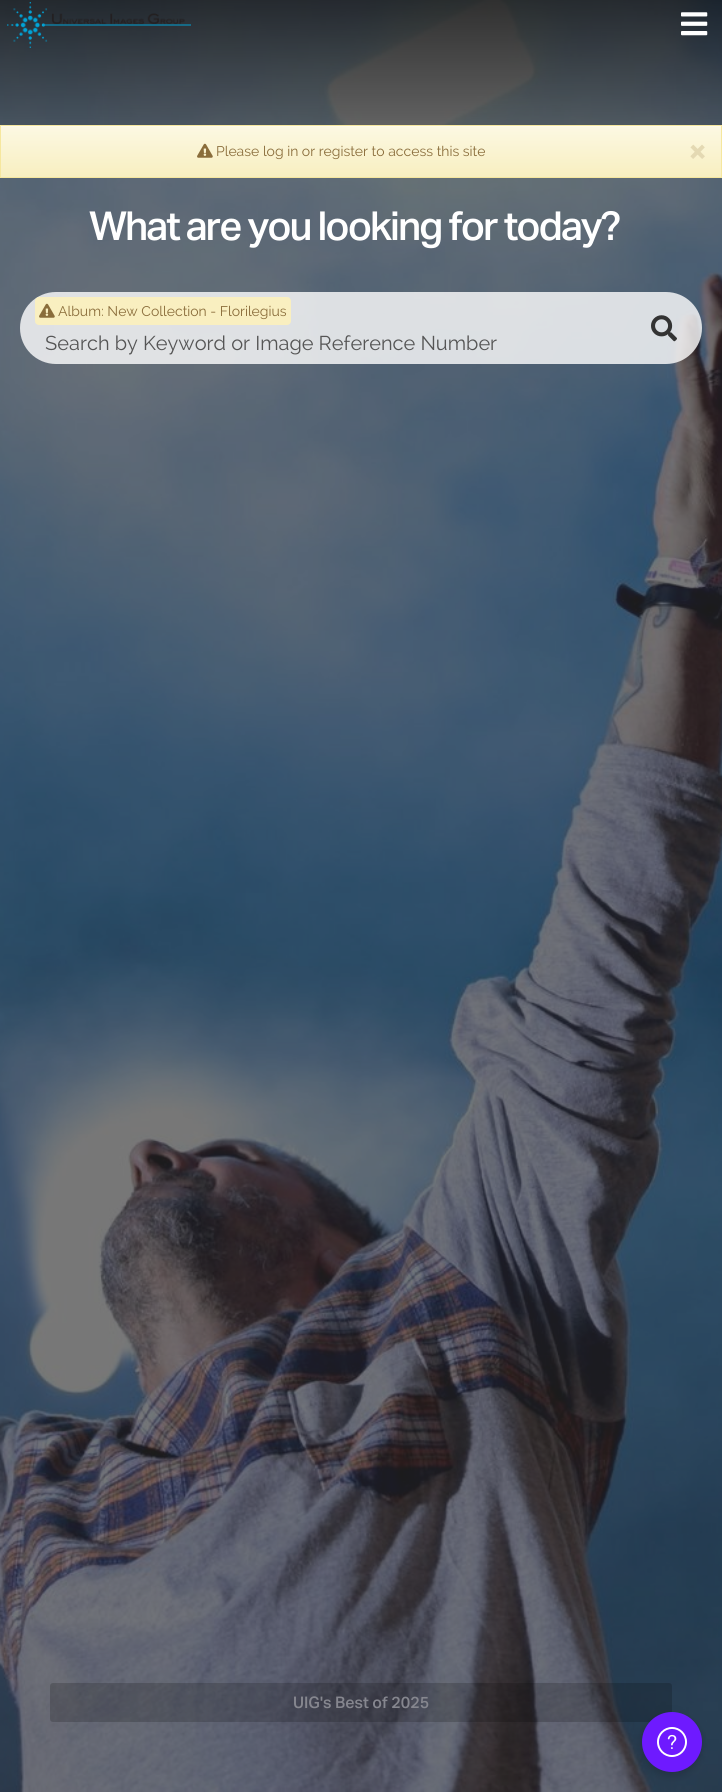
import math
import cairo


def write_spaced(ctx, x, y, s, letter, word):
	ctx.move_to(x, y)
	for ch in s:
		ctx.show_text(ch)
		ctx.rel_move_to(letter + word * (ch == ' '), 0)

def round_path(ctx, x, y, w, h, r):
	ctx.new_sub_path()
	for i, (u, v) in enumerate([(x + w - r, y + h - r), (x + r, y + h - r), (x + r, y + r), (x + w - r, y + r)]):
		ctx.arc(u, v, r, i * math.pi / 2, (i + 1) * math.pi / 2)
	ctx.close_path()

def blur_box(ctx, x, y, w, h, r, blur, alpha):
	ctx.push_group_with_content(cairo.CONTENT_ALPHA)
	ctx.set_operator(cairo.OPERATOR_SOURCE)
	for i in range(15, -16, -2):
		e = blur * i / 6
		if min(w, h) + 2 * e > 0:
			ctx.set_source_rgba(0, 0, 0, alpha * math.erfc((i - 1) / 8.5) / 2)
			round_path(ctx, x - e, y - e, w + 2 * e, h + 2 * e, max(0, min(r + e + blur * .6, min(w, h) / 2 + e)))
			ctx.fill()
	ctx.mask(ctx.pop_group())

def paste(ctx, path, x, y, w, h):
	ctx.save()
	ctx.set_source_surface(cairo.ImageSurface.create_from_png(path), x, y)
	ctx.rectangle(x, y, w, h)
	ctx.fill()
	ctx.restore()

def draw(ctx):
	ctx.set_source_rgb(0.169, 0.169, 0.169)
	ctx.paint()
	paste(ctx, 'media/6.png', 0, 0, 722, 1792)
	gradient = cairo.LinearGradient(361, 0, 361, 180)
	gradient.add_color_stop_rgba(0, 0, 0, 0, 0.6)
	gradient.add_color_stop_rgba(1, 0, 0, 0, 0)
	ctx.set_source(gradient)
	ctx.rectangle(0, 0, 722, 125)
	ctx.fill()
	paste(ctx, 'media/1.png', 681, 12, 27, 24)
	gradient = cairo.LinearGradient(361, 126, 361, 177)
	gradient.add_color_stop_rgba(0, 0.988, 0.973, 0.89, 1)
	gradient.add_color_stop_rgba(1, 0.973, 0.937, 0.753, 1)
	ctx.set_source(gradient)
	ctx.rectangle(1, 127, 720, 50)
	ctx.fill()
	ctx.set_source_rgb(0.992, 0.98, 0.918)
	ctx.rectangle(1, 126, 720, 1)
	ctx.fill()
	ctx.rectangle(0.5, 125.5, 721, 52)
	ctx.set_source_rgb(0.961, 0.906, 0.62)
	ctx.set_line_width(1)
	ctx.stroke()
	paste(ctx, 'media/2.png', 197, 143, 16, 15)
	ctx.select_font_face('Raleway')
	ctx.set_font_size(14)
	ctx.set_source_rgb(0.541, 0.427, 0.231)
	ctx.move_to(216, 156)
	ctx.show_text('Please log in or register to access this site')
	ctx.select_font_face('Raleway SemiBold')
	ctx.set_font_size(41)
	ctx.set_source_rgb(0.894, 0.851, 0.702)
	ctx.move_to(688, 163)
	ctx.show_text('×')
	paste(ctx, 'media/3.png', 7, 2, 184, 46)
	ctx.select_font_face('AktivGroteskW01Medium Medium')
	ctx.set_font_size(40)
	ctx.set_source_rgb(1, 1, 1)
	write_spaced(ctx, 89, 240, 'What are you looking for today?', -2, 0)
	ctx.set_source_rgba(1, 1, 1, 0.8)
	round_path(ctx, 20, 292, 682, 72, 36)
	ctx.fill()
	ctx.set_source_rgb(0.973, 0.937, 0.753)
	round_path(ctx, 35, 297, 256, 28, 4)
	ctx.fill()
	paste(ctx, 'media/4.png', 39, 303, 16, 15)
	ctx.select_font_face('Raleway')
	ctx.set_font_size(14)
	ctx.set_source_rgb(0.541, 0.427, 0.231)
	ctx.move_to(58, 316)
	ctx.show_text('Album: New Collection - Florilegius')
	ctx.set_font_size(20)
	ctx.set_source_rgb(0.333, 0.333, 0.333)
	ctx.move_to(45, 350)
	ctx.show_text('Search by Keyword or Image Reference Number')
	paste(ctx, 'media/5.png', 651, 315, 26, 27)
	ctx.set_source_rgba(0, 0, 0, 0.18)
	round_path(ctx, 50, 1683, 622, 39, 3)
	ctx.fill()
	ctx.select_font_face('AktivGroteskW01Medium Medium')
	ctx.set_font_size(16)
	ctx.set_source_rgb(0.525, 0.529, 0.561)
	ctx.move_to(293, 1708)
	ctx.show_text('UIG\'s Best of 2025')
	ctx.set_source_rgb(0, 0, 0)
	blur_box(ctx, 642, 1716, 60, 60, 30, 4, 0.15)
	ctx.set_source_rgb(0.431, 0.102, 1)
	ctx.arc(672, 1742, 30, 0, 2 * math.pi)
	ctx.fill()
	paste(ctx, 'media/7.png', 657, 1727, 30, 30)


surface = cairo.ImageSurface(cairo.FORMAT_RGB24, 722, 1792)
ctx = cairo.Context(surface)
options = cairo.FontOptions()
options.set_hint_metrics(cairo.HINT_METRICS_OFF)
options.set_hint_style(cairo.HINT_STYLE_NONE)
ctx.set_font_options(options)
ctx.set_miter_limit(4)
draw(ctx)
surface.write_to_png('image.png')
